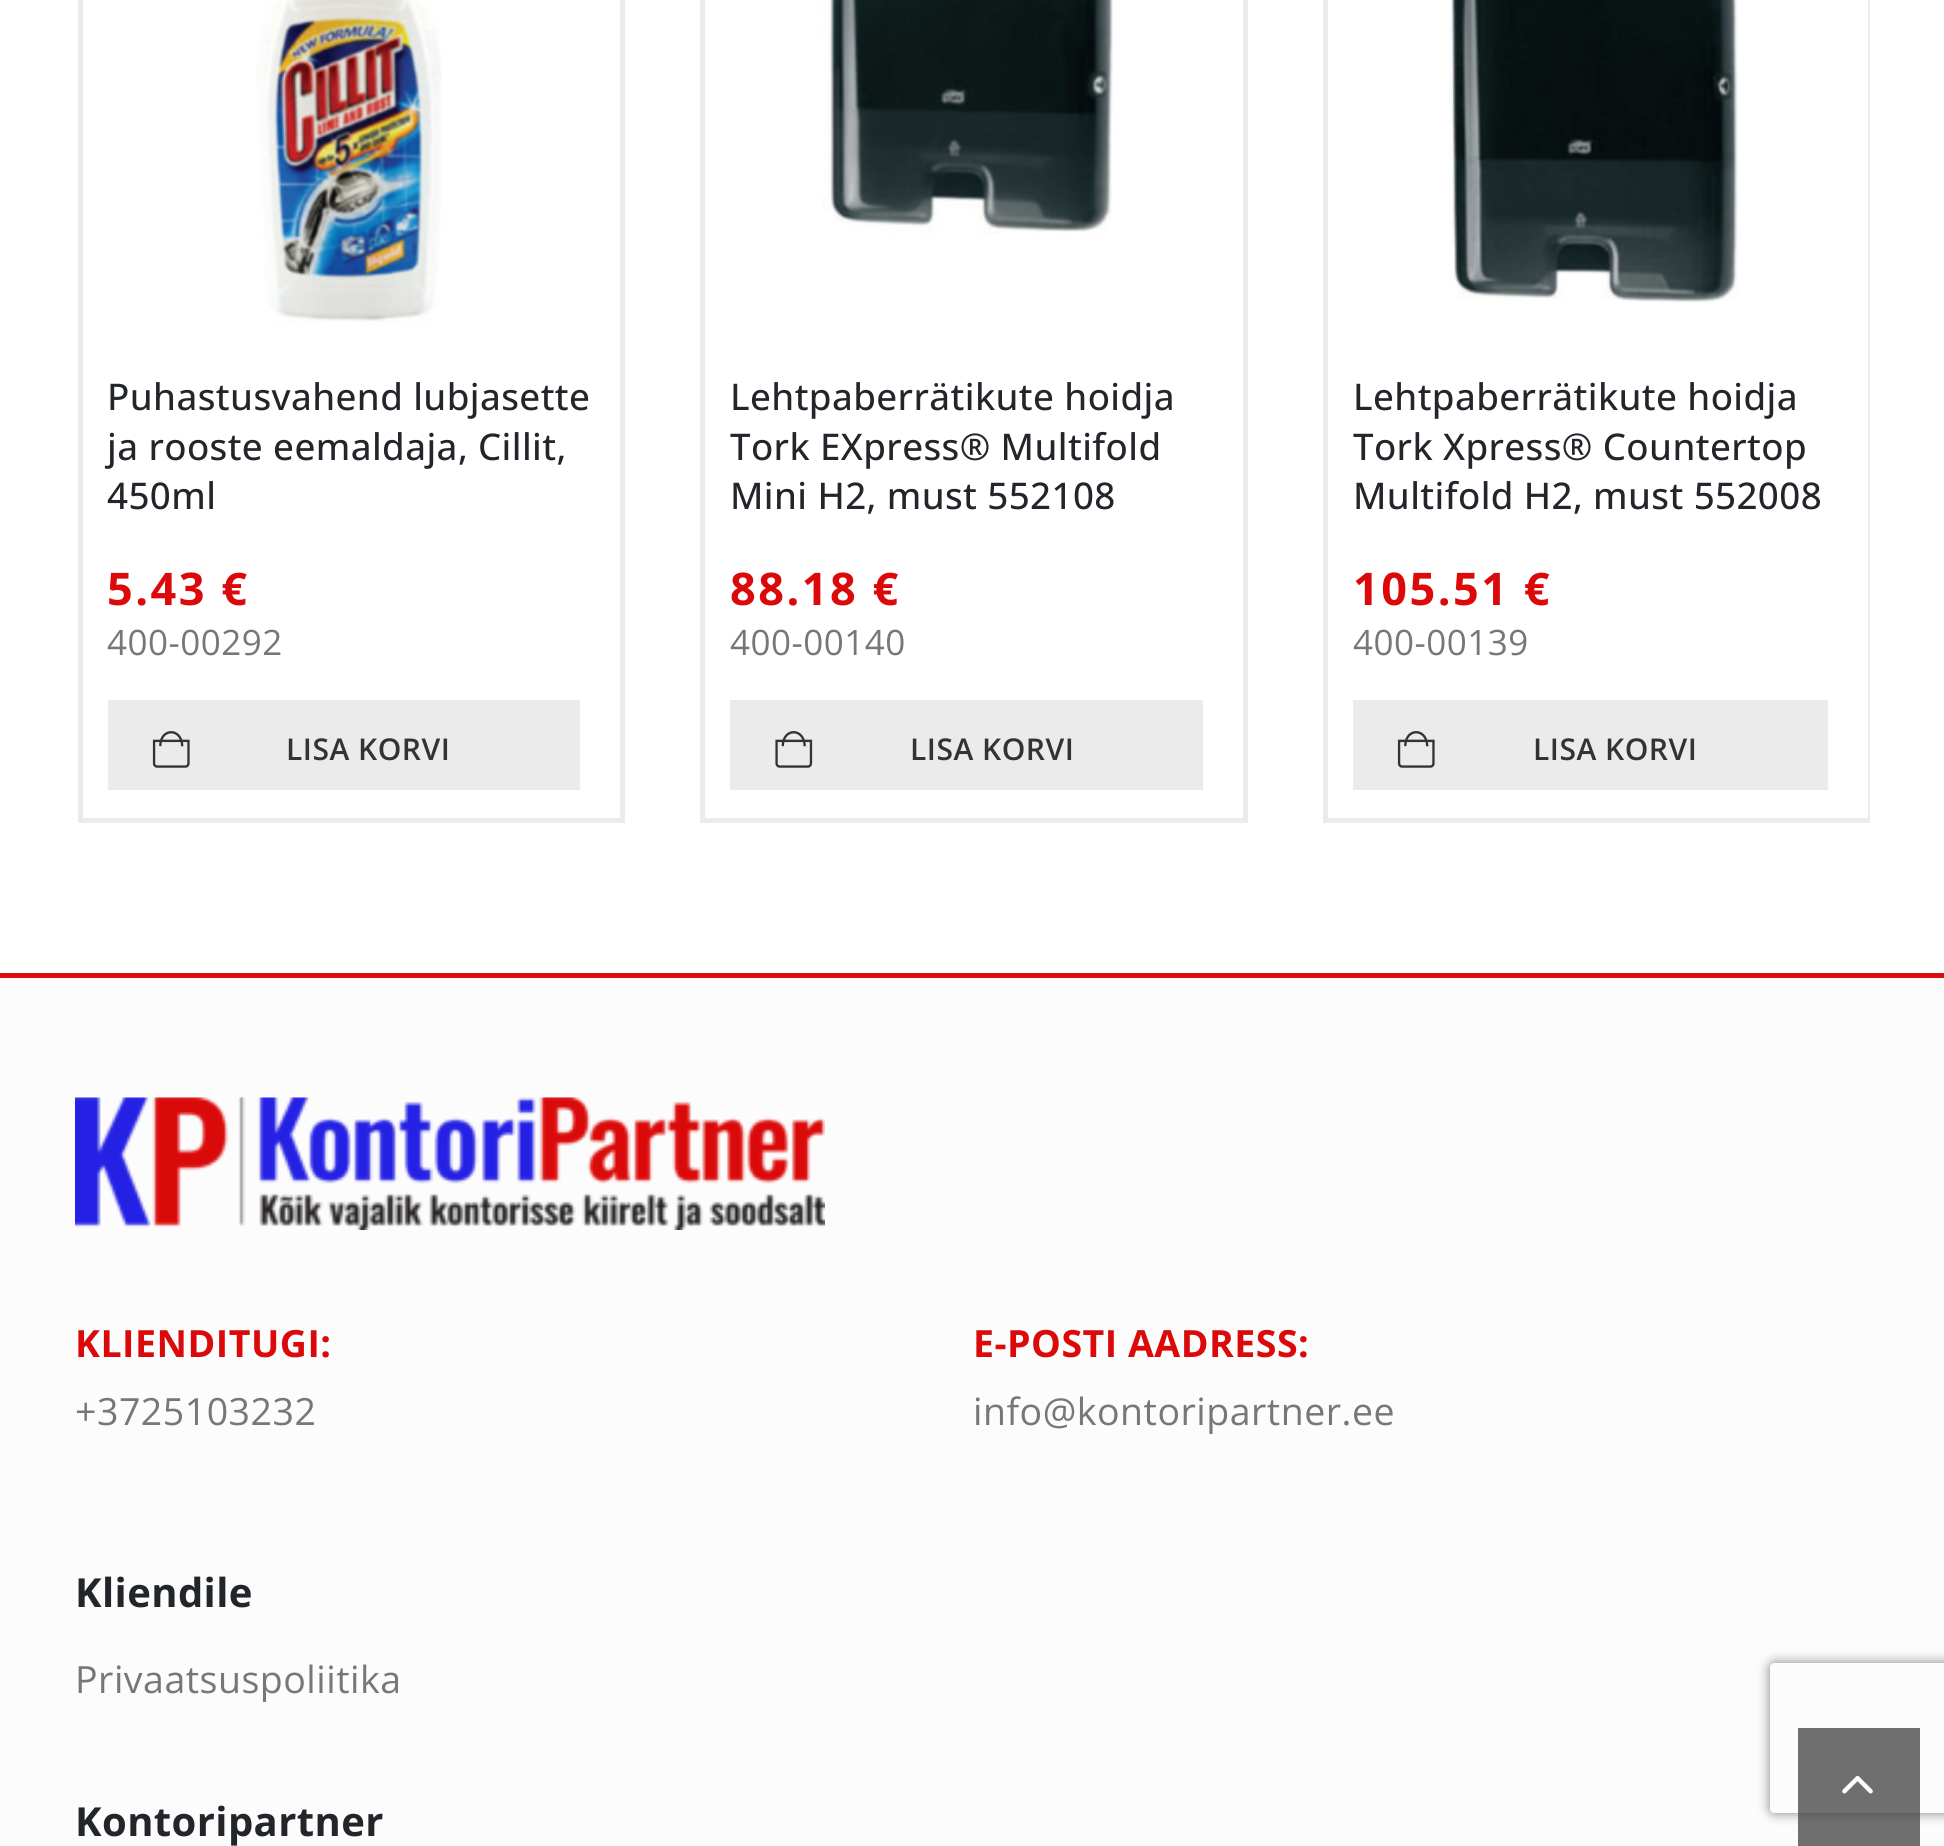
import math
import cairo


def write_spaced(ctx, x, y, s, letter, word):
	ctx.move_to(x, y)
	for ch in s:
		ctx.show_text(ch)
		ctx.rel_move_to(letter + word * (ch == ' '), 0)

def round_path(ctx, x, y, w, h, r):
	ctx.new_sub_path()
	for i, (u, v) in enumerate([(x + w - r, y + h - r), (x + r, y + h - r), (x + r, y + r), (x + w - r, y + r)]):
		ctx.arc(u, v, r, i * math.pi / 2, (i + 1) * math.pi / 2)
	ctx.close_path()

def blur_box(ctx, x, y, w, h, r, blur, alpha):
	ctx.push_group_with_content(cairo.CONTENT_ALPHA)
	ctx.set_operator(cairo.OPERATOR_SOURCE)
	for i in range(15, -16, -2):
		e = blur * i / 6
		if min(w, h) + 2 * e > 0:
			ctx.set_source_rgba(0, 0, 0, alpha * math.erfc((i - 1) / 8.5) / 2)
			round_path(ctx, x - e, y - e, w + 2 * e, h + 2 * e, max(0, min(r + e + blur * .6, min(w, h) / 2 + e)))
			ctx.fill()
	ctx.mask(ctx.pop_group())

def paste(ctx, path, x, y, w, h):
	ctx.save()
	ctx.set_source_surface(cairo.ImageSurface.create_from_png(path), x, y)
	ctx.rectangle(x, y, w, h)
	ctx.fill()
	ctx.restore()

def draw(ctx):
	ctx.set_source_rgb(1, 1, 1)
	ctx.paint()
	ctx.rectangle(80.5, -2.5, 542, 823)
	ctx.set_source_rgb(0.918, 0.918, 0.918)
	ctx.set_line_width(5)
	ctx.stroke()
	paste(ctx, 'media/1.png', 256, 0, 186, 325)
	ctx.select_font_face('Open Sans Medium')
	ctx.set_font_size(36.75)
	ctx.set_source_rgb(0.133, 0.145, 0.161)
	for x, y, s in [
		(107, 410, 'Puhastusvahend lubjasette'),
		(107, 460, 'ja rooste eemaldaja, Cillit,'),
		(107, 509, '450ml'),
	]:
		write_spaced(ctx, x, y, s, 0.4, 0)
	ctx.select_font_face('Open Sans', cairo.FONT_SLANT_NORMAL, cairo.FONT_WEIGHT_BOLD)
	ctx.set_font_size(45)
	ctx.set_source_rgb(0.859, 0.039, 0.039)
	write_spaced(ctx, 107, 605, '5.43 €', 2.5, 0)
	ctx.select_font_face('Open Sans')
	ctx.set_font_size(35)
	ctx.set_source_rgb(0.467, 0.467, 0.467)
	write_spaced(ctx, 107, 655, '400-00292', 0.5, 0)
	ctx.set_source_rgb(0.918, 0.918, 0.918)
	ctx.rectangle(108, 700, 472, 90)
	ctx.fill()
	paste(ctx, 'media/2.png', 152, 731, 38, 37)
	ctx.select_font_face('Open Sans SemiBold')
	ctx.set_font_size(30)
	ctx.set_source_rgb(0.2, 0.2, 0.2)
	write_spaced(ctx, 286, 760, 'LISA KORVI', 0.5, 0)
	ctx.rectangle(702.5, -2.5, 543, 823)
	ctx.set_source_rgb(0.918, 0.918, 0.918)
	ctx.stroke()
	paste(ctx, 'media/3.png', 822, 0, 291, 234)
	ctx.select_font_face('Open Sans Medium')
	ctx.set_font_size(36.75)
	ctx.set_source_rgb(0.133, 0.145, 0.161)
	for x, y, s in [
		(730, 410, 'Lehtpaberrätikute hoidja'),
		(730, 460, 'Tork EXpress® Multifold'),
		(730, 509, 'Mini H2, must 552108'),
	]:
		write_spaced(ctx, x, y, s, 0.4, 0)
	ctx.select_font_face('Open Sans', cairo.FONT_SLANT_NORMAL, cairo.FONT_WEIGHT_BOLD)
	ctx.set_font_size(45)
	ctx.set_source_rgb(0.859, 0.039, 0.039)
	write_spaced(ctx, 730, 605, '88.18 €', 2.5, 0)
	ctx.select_font_face('Open Sans')
	ctx.set_font_size(35)
	ctx.set_source_rgb(0.467, 0.467, 0.467)
	write_spaced(ctx, 730, 655, '400-00140', 0.5, 0)
	ctx.set_source_rgb(0.918, 0.918, 0.918)
	ctx.rectangle(730, 700, 473, 90)
	ctx.fill()
	paste(ctx, 'media/4.png', 775, 731, 38, 37)
	ctx.select_font_face('Open Sans SemiBold')
	ctx.set_font_size(30)
	ctx.set_source_rgb(0.2, 0.2, 0.2)
	write_spaced(ctx, 910, 760, 'LISA KORVI', 0.5, 0)
	ctx.save()
	ctx.rectangle(75, 0, 1795, 898)
	ctx.clip()
	ctx.rectangle(1325.5, -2.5, 545, 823)
	ctx.set_source_rgb(0.918, 0.918, 0.918)
	ctx.stroke()
	ctx.restore()
	paste(ctx, 'media/5.png', 1449, 0, 290, 303)
	ctx.select_font_face('Open Sans Medium')
	ctx.set_font_size(36.75)
	ctx.set_source_rgb(0.133, 0.145, 0.161)
	for x, y, s in [
		(1353, 410, 'Lehtpaberrätikute hoidja'),
		(1353, 460, 'Tork Xpress® Countertop'),
		(1353, 509, 'Multifold H2, must 552008'),
	]:
		write_spaced(ctx, x, y, s, 0.4, 0)
	ctx.select_font_face('Open Sans', cairo.FONT_SLANT_NORMAL, cairo.FONT_WEIGHT_BOLD)
	ctx.set_font_size(45)
	ctx.set_source_rgb(0.859, 0.039, 0.039)
	write_spaced(ctx, 1353, 605, '105.51 €', 2.5, 0)
	ctx.select_font_face('Open Sans')
	ctx.set_font_size(35)
	ctx.set_source_rgb(0.467, 0.467, 0.467)
	write_spaced(ctx, 1353, 655, '400-00139', 0.5, 0)
	ctx.set_source_rgb(0.918, 0.918, 0.918)
	ctx.rectangle(1353, 700, 475, 90)
	ctx.fill()
	paste(ctx, 'media/2.png', 1397, 731, 38, 37)
	ctx.select_font_face('Open Sans SemiBold')
	ctx.set_font_size(30)
	ctx.set_source_rgb(0.2, 0.2, 0.2)
	write_spaced(ctx, 1533, 760, 'LISA KORVI', 0.5, 0)
	ctx.set_source_rgb(0.988, 0.988, 0.988)
	ctx.rectangle(0, 978, 1944, 868)
	ctx.fill()
	ctx.set_source_rgb(0.859, 0.055, 0.055)
	ctx.rectangle(0, 973, 1944, 5)
	ctx.fill()
	paste(ctx, 'media/6.png', 75, 1097, 750, 133)
	ctx.select_font_face('Open Sans', cairo.FONT_SLANT_NORMAL, cairo.FONT_WEIGHT_BOLD)
	ctx.set_font_size(37.5)
	ctx.set_source_rgb(0.859, 0.039, 0.039)
	write_spaced(ctx, 75, 1357, 'KLIENDITUGI:', 0.5, 0)
	ctx.select_font_face('Open Sans')
	ctx.set_source_rgb(0.467, 0.467, 0.467)
	write_spaced(ctx, 75, 1425, '+3725103232', 0.5, 0)
	ctx.select_font_face('Open Sans', cairo.FONT_SLANT_NORMAL, cairo.FONT_WEIGHT_BOLD)
	ctx.set_source_rgb(0.859, 0.039, 0.039)
	write_spaced(ctx, 973, 1357, 'E-POSTI AADRESS:', 0.5, 0)
	ctx.select_font_face('Open Sans')
	ctx.set_source_rgb(0.467, 0.467, 0.467)
	write_spaced(ctx, 973, 1425, 'info@kontoripartner.ee', 0.5, 0)
	ctx.select_font_face('Open Sans', cairo.FONT_SLANT_NORMAL, cairo.FONT_WEIGHT_BOLD)
	ctx.set_font_size(40)
	ctx.set_source_rgb(0.133, 0.145, 0.161)
	write_spaced(ctx, 75, 1607, 'Kliendile', 0.4, 0)
	ctx.select_font_face('Open Sans')
	ctx.set_font_size(37.5)
	ctx.set_source_rgb(0.467, 0.467, 0.467)
	write_spaced(ctx, 75, 1693, 'Privaatsuspoliitika', 0.5, 0)
	ctx.select_font_face('Open Sans', cairo.FONT_SLANT_NORMAL, cairo.FONT_WEIGHT_BOLD)
	ctx.set_font_size(40)
	ctx.set_source_rgb(0.133, 0.145, 0.161)
	write_spaced(ctx, 75, 1836, 'Kontoripartner', 0.4, 0)
	ctx.save()
	ctx.set_fill_rule(cairo.FILL_RULE_EVEN_ODD)
	ctx.new_path()
	ctx.move_to(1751, 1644)
	ctx.line_to(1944, 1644)
	ctx.line_to(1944, 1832)
	ctx.line_to(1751, 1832)
	ctx.close_path()
	ctx.move_to(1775, 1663)
	ctx.line_to(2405, 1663)
	ctx.curve_to(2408, 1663, 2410, 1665, 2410, 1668)
	ctx.line_to(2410, 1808)
	ctx.curve_to(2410, 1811, 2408, 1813, 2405, 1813)
	ctx.line_to(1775, 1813)
	ctx.curve_to(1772, 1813, 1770, 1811, 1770, 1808)
	ctx.line_to(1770, 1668)
	ctx.curve_to(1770, 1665, 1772, 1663, 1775, 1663)
	ctx.close_path()
	ctx.clip()
	ctx.set_source_rgb(0.502, 0.502, 0.502)
	blur_box(ctx, 1770, 1663, 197, 150, 5, 6, 1)
	ctx.restore()
	ctx.set_source_rgba(0.251, 0.251, 0.251, 0.75)
	ctx.rectangle(1798, 1728, 122, 118)
	ctx.fill()
	paste(ctx, 'media/7.png', 1842, 1776, 31, 18)


surface = cairo.ImageSurface(cairo.FORMAT_RGB24, 1944, 1846)
ctx = cairo.Context(surface)
options = cairo.FontOptions()
options.set_hint_metrics(cairo.HINT_METRICS_OFF)
options.set_hint_style(cairo.HINT_STYLE_NONE)
ctx.set_font_options(options)
ctx.set_miter_limit(4)
draw(ctx)
surface.write_to_png('image.png')
